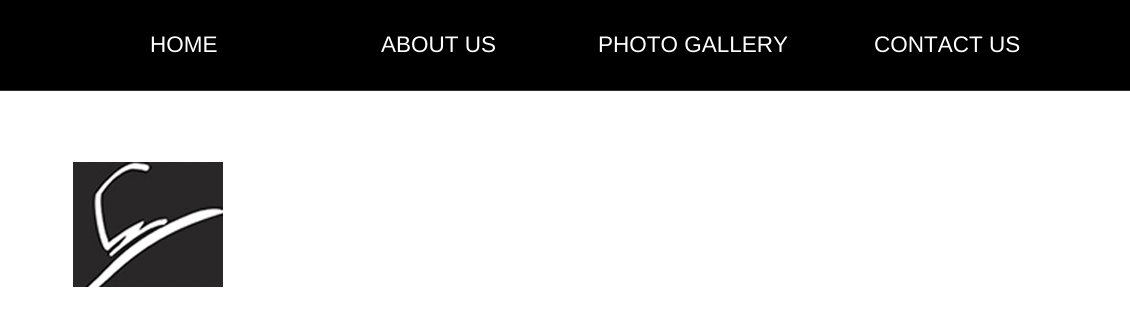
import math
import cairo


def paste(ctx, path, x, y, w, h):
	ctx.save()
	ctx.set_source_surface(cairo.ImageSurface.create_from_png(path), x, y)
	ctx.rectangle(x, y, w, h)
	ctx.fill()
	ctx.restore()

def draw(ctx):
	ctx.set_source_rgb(1, 1, 1)
	ctx.paint()
	ctx.set_source_rgb(0, 0, 0)
	ctx.rectangle(0, 0, 1130, 90)
	ctx.fill()
	ctx.set_source_rgb(0.196, 0.196, 0.196)
	ctx.rectangle(0, 90, 1130, 1)
	ctx.fill()
	ctx.select_font_face('Liberation Sans')
	ctx.set_font_size(22.5)
	ctx.set_source_rgb(1, 1, 1)
	for x, y, s in [
		(150, 52, 'HOME'),
		(381, 52, 'ABOUT US'),
		(598, 52, 'PHOTO GALLERY'),
		(874, 52, 'CONTACT US'),
	]:
		ctx.move_to(x, y)
		ctx.show_text(s)
	paste(ctx, 'media/1.png', 73, 162, 150, 125)


surface = cairo.ImageSurface(cairo.FORMAT_RGB24, 1130, 319)
ctx = cairo.Context(surface)
options = cairo.FontOptions()
options.set_hint_metrics(cairo.HINT_METRICS_OFF)
options.set_hint_style(cairo.HINT_STYLE_NONE)
ctx.set_font_options(options)
ctx.set_miter_limit(4)
draw(ctx)
surface.write_to_png('image.png')
